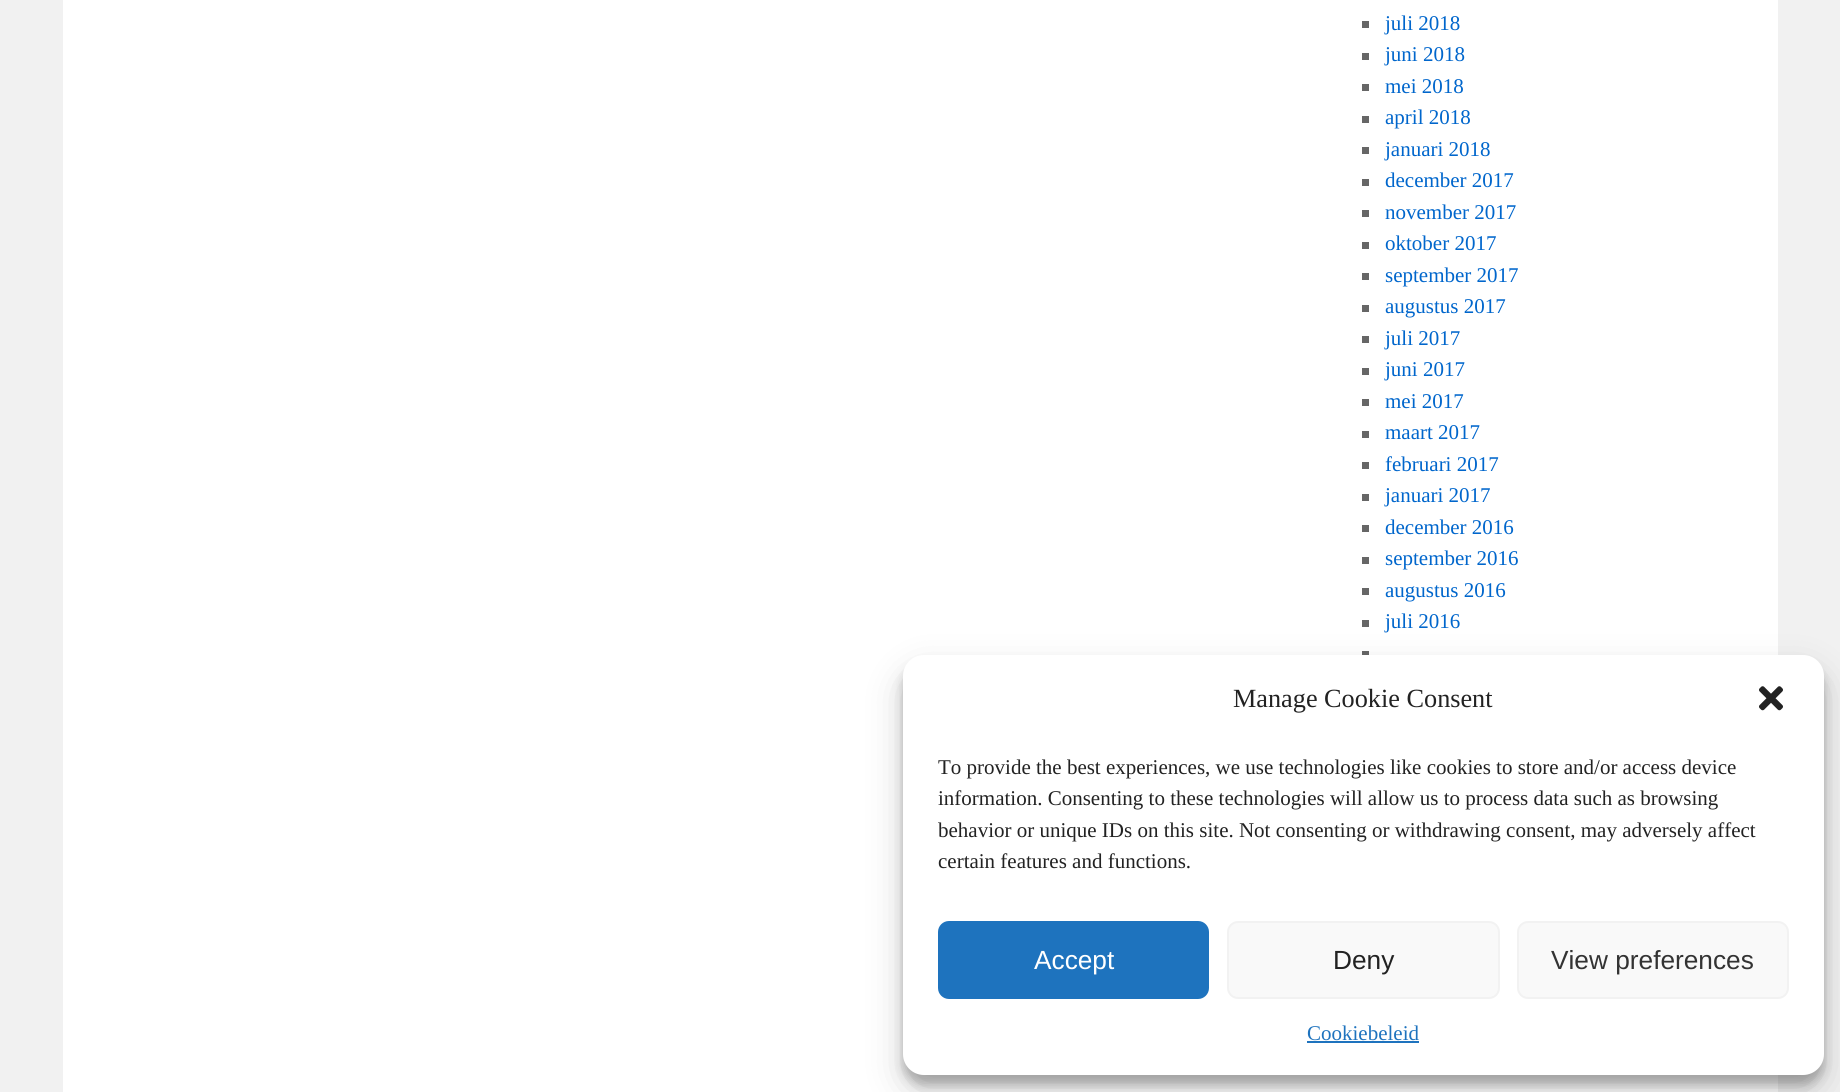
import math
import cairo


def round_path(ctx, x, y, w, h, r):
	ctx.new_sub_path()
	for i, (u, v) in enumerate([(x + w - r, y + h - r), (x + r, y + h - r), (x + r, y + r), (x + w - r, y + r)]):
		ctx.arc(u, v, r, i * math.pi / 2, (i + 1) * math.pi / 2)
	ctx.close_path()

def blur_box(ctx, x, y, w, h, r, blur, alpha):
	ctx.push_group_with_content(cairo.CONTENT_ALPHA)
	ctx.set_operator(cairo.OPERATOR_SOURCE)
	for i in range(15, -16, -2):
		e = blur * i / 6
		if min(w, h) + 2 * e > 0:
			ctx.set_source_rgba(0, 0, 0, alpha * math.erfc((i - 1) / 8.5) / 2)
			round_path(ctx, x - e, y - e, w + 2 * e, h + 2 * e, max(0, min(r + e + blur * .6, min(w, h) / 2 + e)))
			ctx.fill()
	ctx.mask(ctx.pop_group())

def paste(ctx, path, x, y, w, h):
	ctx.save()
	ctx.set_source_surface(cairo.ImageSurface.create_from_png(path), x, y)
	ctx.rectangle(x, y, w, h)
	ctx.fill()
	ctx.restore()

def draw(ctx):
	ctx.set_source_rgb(0.945, 0.945, 0.945)
	ctx.paint()
	ctx.set_source_rgb(1, 1, 1)
	ctx.rectangle(63, 0, 1715, 1092)
	ctx.fill()
	ctx.set_source_rgb(0.4, 0.4, 0.4)
	ctx.rectangle(1362, 21, 7, 7)
	ctx.fill()
	ctx.select_font_face('Liberation Serif')
	ctx.set_font_size(21)
	ctx.set_source_rgb(0, 0.4, 0.8)
	ctx.move_to(1385, 30)
	ctx.show_text('juli 2018')
	ctx.set_source_rgb(0.4, 0.4, 0.4)
	ctx.rectangle(1362, 53, 7, 7)
	ctx.fill()
	ctx.set_source_rgb(0, 0.4, 0.8)
	ctx.move_to(1385, 61)
	ctx.show_text('juni 2018')
	ctx.set_source_rgb(0.4, 0.4, 0.4)
	ctx.rectangle(1362, 84, 7, 7)
	ctx.fill()
	ctx.set_source_rgb(0, 0.4, 0.8)
	ctx.move_to(1385, 93)
	ctx.show_text('mei 2018')
	ctx.set_source_rgb(0.4, 0.4, 0.4)
	ctx.rectangle(1362, 116, 7, 7)
	ctx.fill()
	ctx.set_source_rgb(0, 0.4, 0.8)
	ctx.move_to(1385, 124)
	ctx.show_text('april 2018')
	ctx.set_source_rgb(0.4, 0.4, 0.4)
	ctx.rectangle(1362, 147, 7, 7)
	ctx.fill()
	ctx.set_source_rgb(0, 0.4, 0.8)
	ctx.move_to(1385, 156)
	ctx.show_text('januari 2018')
	ctx.set_source_rgb(0.4, 0.4, 0.4)
	ctx.rectangle(1362, 179, 7, 7)
	ctx.fill()
	ctx.set_source_rgb(0, 0.4, 0.8)
	ctx.move_to(1385, 187)
	ctx.show_text('december 2017')
	ctx.set_source_rgb(0.4, 0.4, 0.4)
	ctx.rectangle(1362, 210, 7, 7)
	ctx.fill()
	ctx.set_source_rgb(0, 0.4, 0.8)
	ctx.move_to(1385, 219)
	ctx.show_text('november 2017')
	ctx.set_source_rgb(0.4, 0.4, 0.4)
	ctx.rectangle(1362, 242, 7, 7)
	ctx.fill()
	ctx.set_source_rgb(0, 0.4, 0.8)
	ctx.move_to(1385, 250)
	ctx.show_text('oktober 2017')
	ctx.set_source_rgb(0.4, 0.4, 0.4)
	ctx.rectangle(1362, 273, 7, 7)
	ctx.fill()
	ctx.set_source_rgb(0, 0.4, 0.8)
	ctx.move_to(1385, 282)
	ctx.show_text('september 2017')
	ctx.set_source_rgb(0.4, 0.4, 0.4)
	ctx.rectangle(1362, 305, 7, 7)
	ctx.fill()
	ctx.set_source_rgb(0, 0.4, 0.8)
	ctx.move_to(1385, 313)
	ctx.show_text('augustus 2017')
	ctx.set_source_rgb(0.4, 0.4, 0.4)
	ctx.rectangle(1362, 336, 7, 7)
	ctx.fill()
	ctx.set_source_rgb(0, 0.4, 0.8)
	ctx.move_to(1385, 345)
	ctx.show_text('juli 2017')
	ctx.set_source_rgb(0.4, 0.4, 0.4)
	ctx.rectangle(1362, 368, 7, 7)
	ctx.fill()
	ctx.set_source_rgb(0, 0.4, 0.8)
	ctx.move_to(1385, 376)
	ctx.show_text('juni 2017')
	ctx.set_source_rgb(0.4, 0.4, 0.4)
	ctx.rectangle(1362, 399, 7, 7)
	ctx.fill()
	ctx.set_source_rgb(0, 0.4, 0.8)
	ctx.move_to(1385, 408)
	ctx.show_text('mei 2017')
	ctx.set_source_rgb(0.4, 0.4, 0.4)
	ctx.rectangle(1362, 431, 7, 7)
	ctx.fill()
	ctx.set_source_rgb(0, 0.4, 0.8)
	ctx.move_to(1385, 439)
	ctx.show_text('maart 2017')
	ctx.set_source_rgb(0.4, 0.4, 0.4)
	ctx.rectangle(1362, 462, 7, 7)
	ctx.fill()
	ctx.set_source_rgb(0, 0.4, 0.8)
	ctx.move_to(1385, 471)
	ctx.show_text('februari 2017')
	ctx.set_source_rgb(0.4, 0.4, 0.4)
	ctx.rectangle(1362, 494, 7, 7)
	ctx.fill()
	ctx.set_source_rgb(0, 0.4, 0.8)
	ctx.move_to(1385, 502)
	ctx.show_text('januari 2017')
	ctx.set_source_rgb(0.4, 0.4, 0.4)
	ctx.rectangle(1362, 525, 7, 7)
	ctx.fill()
	ctx.set_source_rgb(0, 0.4, 0.8)
	ctx.move_to(1385, 534)
	ctx.show_text('december 2016')
	ctx.set_source_rgb(0.4, 0.4, 0.4)
	ctx.rectangle(1362, 557, 7, 7)
	ctx.fill()
	ctx.set_source_rgb(0, 0.4, 0.8)
	ctx.move_to(1385, 565)
	ctx.show_text('september 2016')
	ctx.set_source_rgb(0.4, 0.4, 0.4)
	ctx.rectangle(1362, 588, 7, 7)
	ctx.fill()
	ctx.set_source_rgb(0, 0.4, 0.8)
	ctx.move_to(1385, 597)
	ctx.show_text('augustus 2016')
	ctx.set_source_rgb(0.4, 0.4, 0.4)
	ctx.rectangle(1362, 620, 7, 7)
	ctx.fill()
	ctx.set_source_rgb(0, 0.4, 0.8)
	ctx.move_to(1385, 628)
	ctx.show_text('juli 2016')
	ctx.set_source_rgb(0.4, 0.4, 0.4)
	ctx.rectangle(1362, 651, 7, 4)
	ctx.fill()
	ctx.set_source_rgb(0, 0, 0)
	blur_box(ctx, 903, 665, 921, 420, 21, 5, 0.23)
	blur_box(ctx, 903, 672, 921, 420, 21, 17.5, 0.19)
	ctx.set_source_rgb(1, 1, 1)
	round_path(ctx, 903, 655, 921, 420, 21)
	ctx.fill()
	ctx.set_font_size(26.25)
	ctx.set_source_rgb(0.133, 0.133, 0.133)
	ctx.move_to(1233, 707)
	ctx.show_text('Manage Cookie Consent')
	paste(ctx, 'media/1.png', 1759, 686, 24, 25)
	ctx.set_font_size(21)
	for x, y, s in [
		(938, 774, 'To provide the best experiences, we use technologies like cookies to store and/or access device'),
		(938, 805, 'information. Consenting to these technologies will allow us to process data such as browsing'),
		(938, 837, 'behavior or unique IDs on this site. Not consenting or withdrawing consent, may adversely affect'),
		(938, 868, 'certain features and functions.'),
	]:
		ctx.move_to(x, y)
		ctx.show_text(s)
	ctx.set_source_rgb(0.118, 0.451, 0.745)
	round_path(ctx, 939, 922, 269, 76, 10)
	ctx.fill_preserve()
	ctx.stroke()
	ctx.select_font_face('Liberation Sans')
	ctx.set_font_size(26.25)
	ctx.set_source_rgb(1, 1, 1)
	ctx.move_to(1034, 969)
	ctx.show_text('Accept')
	ctx.set_source_rgb(0.976, 0.976, 0.976)
	round_path(ctx, 1228, 922, 271, 76, 10)
	ctx.fill_preserve()
	ctx.set_source_rgb(0.949, 0.949, 0.949)
	ctx.stroke()
	ctx.set_source_rgb(0.133, 0.133, 0.133)
	ctx.move_to(1333, 969)
	ctx.show_text('Deny')
	ctx.set_source_rgb(0.976, 0.976, 0.976)
	round_path(ctx, 1518, 922, 270, 76, 10)
	ctx.fill_preserve()
	ctx.set_source_rgb(0.949, 0.949, 0.949)
	ctx.stroke()
	ctx.set_source_rgb(0.2, 0.2, 0.2)
	ctx.move_to(1551, 969)
	ctx.show_text('View preferences')
	ctx.select_font_face('Liberation Serif')
	ctx.set_font_size(21)
	ctx.set_source_rgb(0.118, 0.451, 0.745)
	ctx.move_to(1307, 1040)
	ctx.show_text('Cookiebeleid')
	ctx.rectangle(1307, 1041, 112, 2)
	ctx.fill()


surface = cairo.ImageSurface(cairo.FORMAT_RGB24, 1840, 1092)
ctx = cairo.Context(surface)
options = cairo.FontOptions()
options.set_hint_metrics(cairo.HINT_METRICS_OFF)
options.set_hint_style(cairo.HINT_STYLE_NONE)
ctx.set_font_options(options)
ctx.set_miter_limit(4)
draw(ctx)
surface.write_to_png('image.png')
